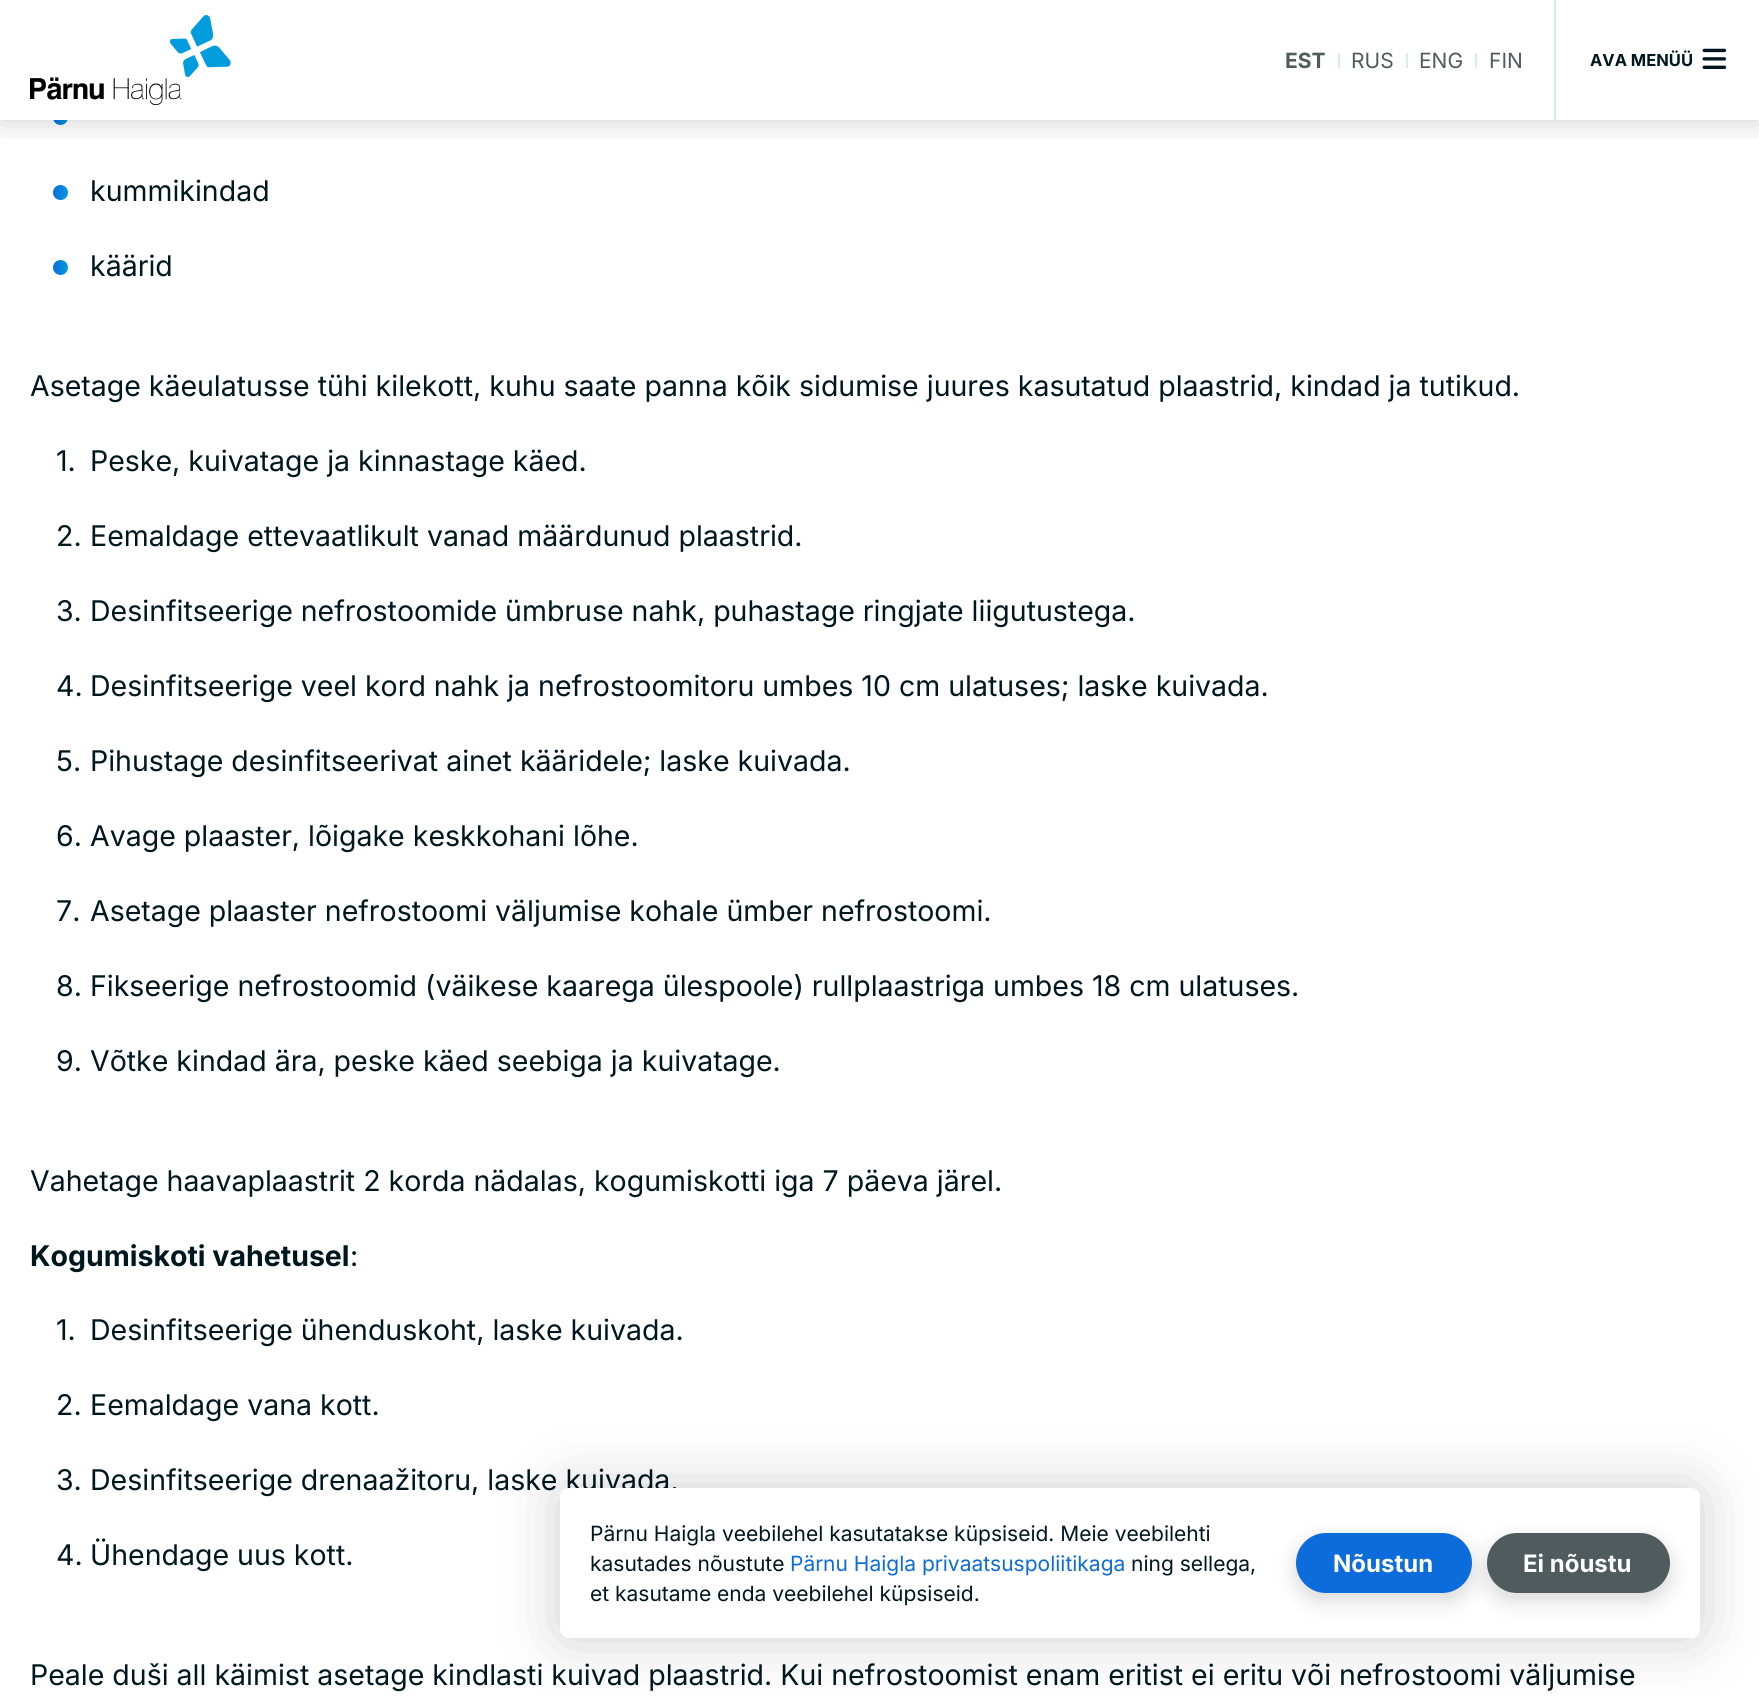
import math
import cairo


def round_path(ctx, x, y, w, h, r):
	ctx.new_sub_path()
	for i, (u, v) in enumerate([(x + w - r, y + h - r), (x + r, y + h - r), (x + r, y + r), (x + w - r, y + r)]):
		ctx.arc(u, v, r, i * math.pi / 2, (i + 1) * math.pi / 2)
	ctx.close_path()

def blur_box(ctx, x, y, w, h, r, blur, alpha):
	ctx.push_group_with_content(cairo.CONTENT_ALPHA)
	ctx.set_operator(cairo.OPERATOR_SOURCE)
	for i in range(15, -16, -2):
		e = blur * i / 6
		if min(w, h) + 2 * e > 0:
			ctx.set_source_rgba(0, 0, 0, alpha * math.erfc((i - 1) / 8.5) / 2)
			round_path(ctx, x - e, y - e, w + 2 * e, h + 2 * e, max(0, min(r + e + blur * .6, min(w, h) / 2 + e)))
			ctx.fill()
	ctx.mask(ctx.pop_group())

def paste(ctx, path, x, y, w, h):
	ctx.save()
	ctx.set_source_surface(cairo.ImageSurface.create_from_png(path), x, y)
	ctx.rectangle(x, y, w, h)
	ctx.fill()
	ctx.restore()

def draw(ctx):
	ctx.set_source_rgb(1, 1, 1)
	ctx.paint()
	gradient = cairo.LinearGradient(68, 117, 53, 117)
	gradient.add_color_stop_rgba(0, 0, 0.612, 0.871, 1)
	gradient.add_color_stop_rgba(1, 0.047, 0.424, 0.863, 1)
	ctx.set_source(gradient)
	ctx.arc(60.5, 117.5, 7.5, 0, 2 * math.pi)
	ctx.fill()
	ctx.set_source_rgb(1, 1, 1)
	ctx.rectangle(53, 110, 15, 10)
	ctx.fill()
	paste(ctx, 'media/1.png', 30, 15, 201, 90)
	ctx.set_source_rgb(0.847, 0.918, 0.945)
	ctx.rectangle(1338, 53, 2, 15)
	ctx.rectangle(1406, 53, 2, 15)
	ctx.rectangle(1475, 53, 2, 15)
	ctx.rectangle(1554, 0, 2, 120)
	ctx.fill()
	paste(ctx, 'media/2.png', 1702, 48, 25, 21)
	ctx.save()
	ctx.rectangle(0, 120, 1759, 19)
	ctx.clip()
	ctx.set_source_rgb(0, 0, 0)
	blur_box(ctx, 0, 0, 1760, 120, 0, 15, 0.2)
	ctx.restore()
	ctx.select_font_face('Inter', cairo.FONT_SLANT_NORMAL, cairo.FONT_WEIGHT_BOLD)
	ctx.set_font_size(21)
	ctx.set_source_rgb(0.314, 0.357, 0.369)
	ctx.move_to(1285, 68)
	ctx.show_text('EST')
	ctx.select_font_face('Inter')
	for x, y, s in [
		(1351, 68, 'RUS'),
		(1419, 68, 'ENG'),
		(1489, 68, 'FIN'),
	]:
		ctx.move_to(x, y)
		ctx.show_text(s)
	ctx.select_font_face('Inter', cairo.FONT_SLANT_NORMAL, cairo.FONT_WEIGHT_BOLD)
	ctx.set_font_size(16.5)
	ctx.set_source_rgb(0, 0.09, 0.122)
	ctx.move_to(1590, 66)
	ctx.show_text('AVA MENÜÜ')
	gradient = cairo.LinearGradient(68, 192, 53, 192)
	gradient.add_color_stop_rgba(0, 0, 0.612, 0.871, 1)
	gradient.add_color_stop_rgba(1, 0.047, 0.424, 0.863, 1)
	ctx.set_source(gradient)
	ctx.new_path()
	ctx.arc(60.5, 192.5, 7.5, 0, 2 * math.pi)
	ctx.fill()
	ctx.select_font_face('Inter')
	ctx.set_font_size(28.5)
	ctx.set_source_rgb(0, 0.09, 0.122)
	ctx.move_to(90, 201)
	ctx.show_text('kummikindad')
	gradient = cairo.LinearGradient(68, 267, 53, 267)
	gradient.add_color_stop_rgba(0, 0, 0.612, 0.871, 1)
	gradient.add_color_stop_rgba(1, 0.047, 0.424, 0.863, 1)
	ctx.set_source(gradient)
	ctx.new_path()
	ctx.arc(60.5, 267.5, 7.5, 0, 2 * math.pi)
	ctx.fill()
	ctx.set_source_rgb(0, 0.09, 0.122)
	for x, y, s in [
		(90, 276, 'käärid'),
		(30, 396, 'Asetage käeulatusse tühi kilekott, kuhu saate panna kõik sidumise juures kasutatud plaastrid, kindad ja tutikud.'),
		(56, 471, '1.'),
		(90, 471, 'Peske, kuivatage ja kinnastage käed.'),
		(56, 546, '2.'),
		(90, 546, 'Eemaldage ettevaatlikult vanad määrdunud plaastrid.'),
		(56, 621, '3.'),
		(90, 621, 'Desinfitseerige nefrostoomide ümbruse nahk, puhastage ringjate liigutustega.'),
		(56, 696, '4.'),
		(90, 696, 'Desinfitseerige veel kord nahk ja nefrostoomitoru umbes 10 cm ulatuses; laske kuivada.'),
		(56, 771, '5.'),
		(90, 771, 'Pihustage desinfitseerivat ainet kääridele; laske kuivada.'),
		(56, 846, '6.'),
		(90, 846, 'Avage plaaster, lõigake keskkohani lõhe.'),
		(56, 921, '7.'),
		(90, 921, 'Asetage plaaster nefrostoomi väljumise kohale ümber nefrostoomi.'),
		(56, 996, '8.'),
		(90, 996, 'Fikseerige nefrostoomid (väikese kaarega ülespoole) rullplaastriga umbes 18 cm ulatuses.'),
		(56, 1071, '9.'),
		(90, 1071, 'Võtke kindad ära, peske käed seebiga ja kuivatage.'),
		(30, 1191, 'Vahetage haavaplaastrit 2 korda nädalas, kogumiskotti iga 7 päeva järel.'),
	]:
		ctx.move_to(x, y)
		ctx.show_text(s)
	ctx.select_font_face('Inter', cairo.FONT_SLANT_NORMAL, cairo.FONT_WEIGHT_BOLD)
	ctx.move_to(30, 1266)
	ctx.show_text('Kogumiskoti vahetusel')
	ctx.select_font_face('Inter')
	for x, y, s in [
		(350, 1266, ':'),
		(56, 1340, '1.'),
		(90, 1340, 'Desinfitseerige ühenduskoht, laske kuivada.'),
		(56, 1415, '2.'),
		(90, 1415, 'Eemaldage vana kott.'),
		(56, 1490, '3.'),
		(90, 1490, 'Desinfitseerige drenaažitoru, laske kuivada,'),
		(56, 1565, '4.'),
		(90, 1565, 'Ühendage uus kott.'),
		(30, 1685, 'Peale duši all käimist asetage kindlasti kuivad plaastrid. Kui nefrostoomist enam eritist ei eritu või nefrostoomi väljumise'),
	]:
		ctx.move_to(x, y)
		ctx.show_text(s)
	ctx.set_source_rgb(0, 0, 0)
	blur_box(ctx, 560, 1488, 1140, 150, 9, 30, 0.2)
	ctx.set_source_rgb(1, 1, 1)
	round_path(ctx, 560, 1488, 1140, 150, 9)
	ctx.fill()
	ctx.set_font_size(21)
	ctx.set_source_rgb(0, 0.09, 0.122)
	ctx.move_to(590, 1541)
	ctx.show_text('Pärnu Haigla veebilehel kasutatakse küpsiseid. Meie veebilehti')
	ctx.move_to(590, 1571)
	ctx.show_text('kasutades nõustute')
	ctx.set_source_rgb(0.047, 0.424, 0.863)
	ctx.move_to(790, 1571)
	ctx.show_text('Pärnu Haigla privaatsuspoliitikaga')
	ctx.set_source_rgb(0, 0.09, 0.122)
	ctx.move_to(1131, 1571)
	ctx.show_text('ning sellega,')
	ctx.move_to(590, 1601)
	ctx.show_text('et kasutame enda veebilehel küpsiseid.')
	ctx.set_source_rgb(0, 0, 0)
	blur_box(ctx, 1296, 1541, 176, 60, 30, 11, 0.15)
	ctx.set_source_rgb(0.047, 0.424, 0.863)
	round_path(ctx, 1296, 1533, 176, 60, 30)
	ctx.fill()
	ctx.select_font_face('Inter', cairo.FONT_SLANT_NORMAL, cairo.FONT_WEIGHT_BOLD)
	ctx.set_font_size(24)
	ctx.set_source_rgb(1, 1, 1)
	ctx.move_to(1333, 1572)
	ctx.show_text('Nõustun')
	ctx.set_source_rgb(0, 0, 0)
	blur_box(ctx, 1487, 1541, 183, 60, 30, 11, 0.15)
	ctx.set_source_rgb(0.314, 0.357, 0.369)
	round_path(ctx, 1487, 1533, 183, 60, 30)
	ctx.fill()
	ctx.set_source_rgb(1, 1, 1)
	ctx.move_to(1523, 1572)
	ctx.show_text('Ei nõustu')


surface = cairo.ImageSurface(cairo.FORMAT_RGB24, 1759, 1697)
ctx = cairo.Context(surface)
options = cairo.FontOptions()
options.set_hint_metrics(cairo.HINT_METRICS_OFF)
options.set_hint_style(cairo.HINT_STYLE_NONE)
ctx.set_font_options(options)
ctx.set_miter_limit(4)
draw(ctx)
surface.write_to_png('image.png')
